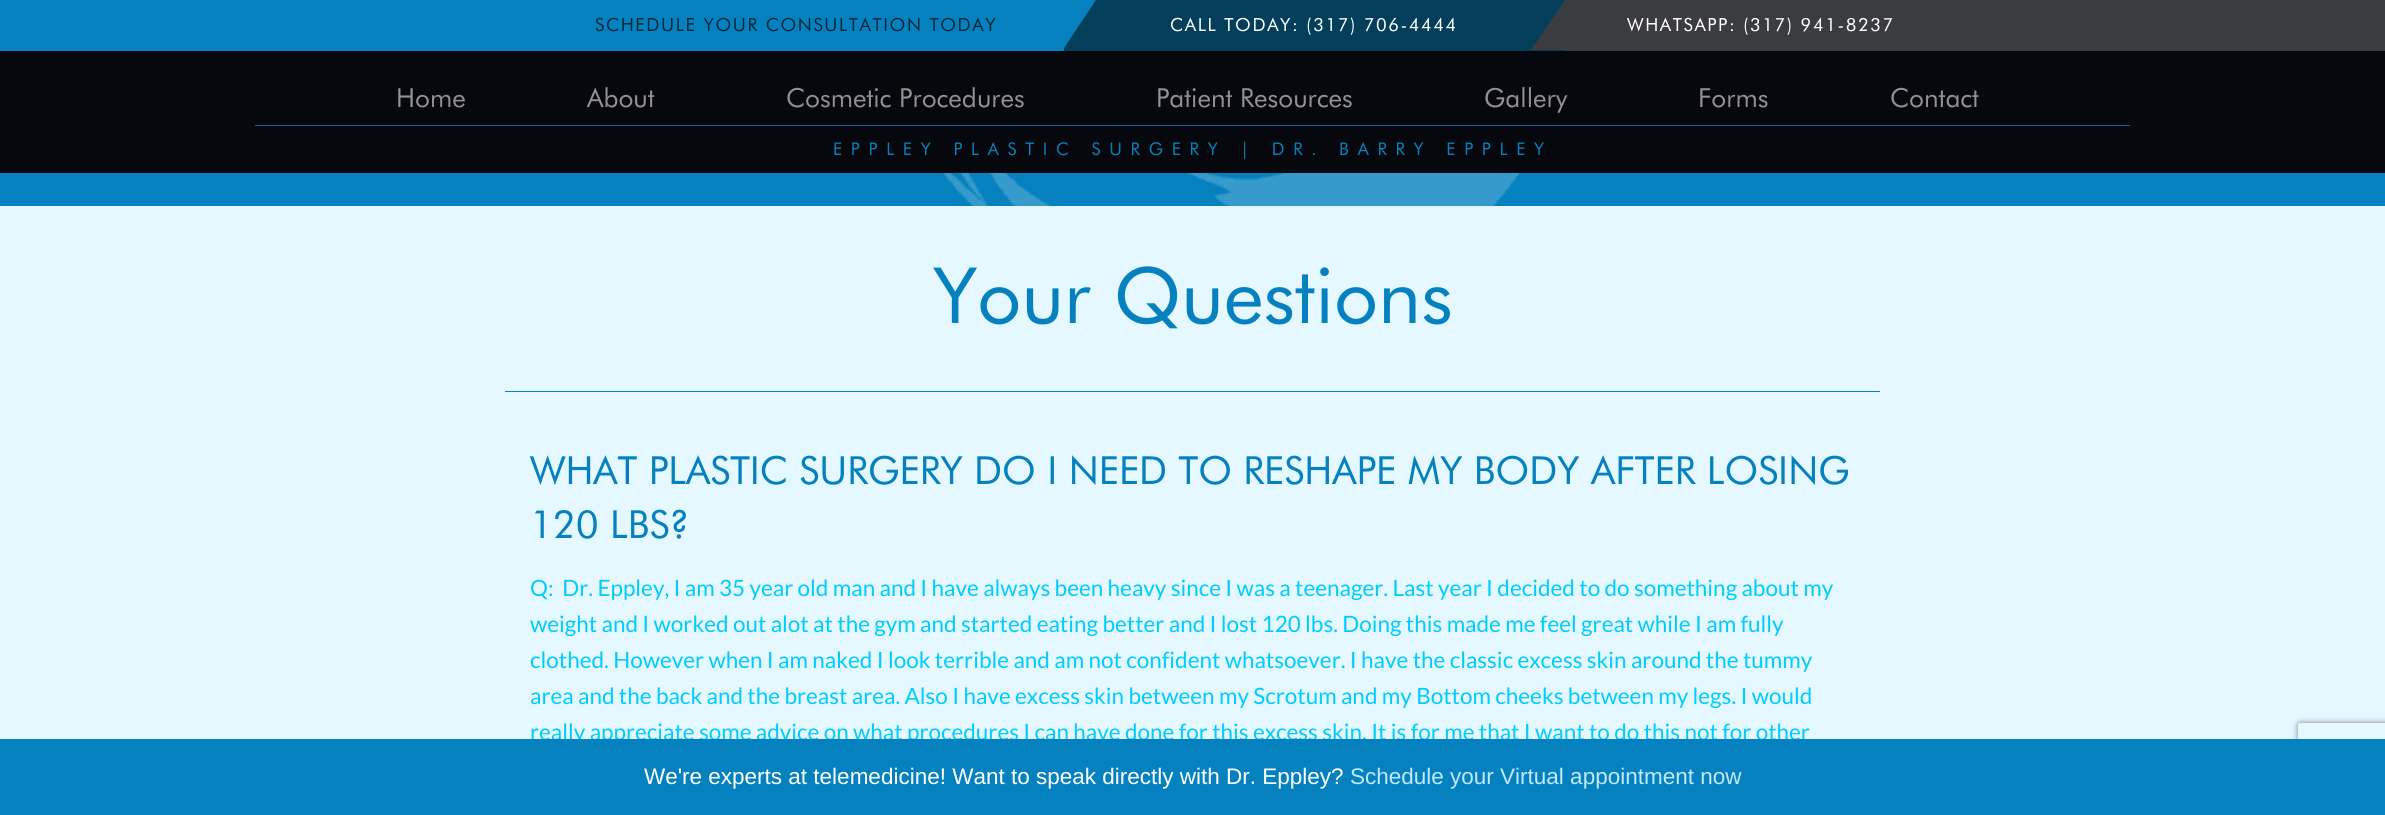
import math
import cairo


def write_spaced(ctx, x, y, s, letter, word):
	ctx.move_to(x, y)
	for ch in s:
		ctx.show_text(ch)
		ctx.rel_move_to(letter + word * (ch == ' '), 0)

def round_path(ctx, x, y, w, h, r):
	ctx.new_sub_path()
	for i, (u, v) in enumerate([(x + w - r, y + h - r), (x + r, y + h - r), (x + r, y + r), (x + w - r, y + r)]):
		ctx.arc(u, v, r, i * math.pi / 2, (i + 1) * math.pi / 2)
	ctx.close_path()

def blur_box(ctx, x, y, w, h, r, blur, alpha):
	ctx.push_group_with_content(cairo.CONTENT_ALPHA)
	ctx.set_operator(cairo.OPERATOR_SOURCE)
	for i in range(15, -16, -2):
		e = blur * i / 6
		if min(w, h) + 2 * e > 0:
			ctx.set_source_rgba(0, 0, 0, alpha * math.erfc((i - 1) / 8.5) / 2)
			round_path(ctx, x - e, y - e, w + 2 * e, h + 2 * e, max(0, min(r + e + blur * .6, min(w, h) / 2 + e)))
			ctx.fill()
	ctx.mask(ctx.pop_group())

def paste(ctx, path, x, y, w, h):
	ctx.save()
	ctx.set_source_surface(cairo.ImageSurface.create_from_png(path), x, y)
	ctx.rectangle(x, y, w, h)
	ctx.fill()
	ctx.restore()

def draw(ctx):
	ctx.set_source_rgb(0.898, 0.965, 1)
	ctx.paint()
	ctx.set_source_rgb(0.02, 0.506, 0.749)
	ctx.rectangle(0, 0, 1064, 51)
	ctx.fill()
	ctx.select_font_face('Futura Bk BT')
	ctx.set_font_size(18.1)
	ctx.set_source_rgb(0.012, 0.157, 0.227)
	write_spaced(ctx, 595, 31, 'SCHEDULE YOUR CONSULTATION TODAY', 1.6, 0)
	ctx.set_source_rgb(0.012, 0.243, 0.357)
	ctx.rectangle(1064, 0, 501, 51)
	ctx.fill()
	ctx.set_source_rgb(0.02, 0.506, 0.749)
	ctx.new_path()
	ctx.move_to(1062, 0)
	ctx.line_to(1096, 0)
	ctx.line_to(1062, 51)
	ctx.close_path()
	ctx.fill()
	ctx.set_source_rgb(1, 1, 1)
	write_spaced(ctx, 1170, 31, 'CALL TODAY: (317) 706-4444', 1.6, 0)
	ctx.set_source_rgb(0.231, 0.235, 0.251)
	ctx.rectangle(1565, 0, 820, 51)
	ctx.fill()
	ctx.new_path()
	ctx.move_to(1565, 50)
	ctx.line_to(1531, 50)
	ctx.line_to(1565, 0)
	ctx.close_path()
	ctx.fill()
	ctx.set_source_rgb(1, 1, 1)
	write_spaced(ctx, 1627, 31, 'WHATSAPP: (317) 941-8237', 1.6, 0)
	ctx.set_source_rgb(0.031, 0.035, 0.051)
	ctx.rectangle(0, 51, 2385, 122)
	ctx.fill()
	ctx.set_source_rgb(0.024, 0.412, 0.612)
	ctx.rectangle(255, 125, 1875, 1)
	ctx.fill()
	ctx.set_font_size(26.25)
	ctx.set_source_rgb(0.569, 0.569, 0.569)
	for x, y, s in [
		(396, 107, 'Home'),
		(587, 107, 'About'),
		(786, 107, 'Cosmetic Procedures'),
		(1156, 107, 'Patient Resources'),
		(1484, 107, 'Gallery'),
		(1698, 107, 'Forms'),
		(1890, 107, 'Contact'),
	]:
		ctx.move_to(x, y)
		ctx.show_text(s)
	ctx.set_font_size(17.5)
	ctx.set_source_rgb(0.02, 0.506, 0.749)
	write_spaced(ctx, 833, 155, 'EPPLEY PLASTIC SURGERY | DR. BARRY EPPLEY', 8.75, 0)
	ctx.rectangle(0, 173, 2385, 33)
	ctx.fill()
	paste(ctx, 'media/1.png', 942, 173, 578, 33)
	ctx.rectangle(505, 391, 1375, 1)
	ctx.fill()
	ctx.set_font_size(77.5)
	ctx.move_to(933, 323)
	ctx.show_text('Your Questions')
	ctx.set_font_size(38.75)
	ctx.move_to(530, 484)
	ctx.show_text('WHAT PLASTIC SURGERY DO I NEED TO RESHAPE MY BODY AFTER LOSING')
	ctx.move_to(530, 538)
	ctx.show_text('120 LBS?')
	ctx.select_font_face('Lato')
	ctx.set_font_size(22.5)
	ctx.set_source_rgb(0, 0.8, 1)
	for x, y, s in [
		(530, 596, 'Q:  Dr. Eppley, I am 35 year old man and I have always been heavy since I was a teenager. Last year I decided to do something about my'),
		(530, 632, 'weight and I worked out alot at the gym and started eating better and I lost 120 lbs. Doing this made me feel great while I am fully'),
		(530, 668, 'clothed. However when I am naked I look terrible and am not confident whatsoever. I have the classic excess skin around the tummy'),
		(530, 704, 'area and the back and the breast area. Also I have excess skin between my Scrotum and my Bottom cheeks between my legs. I would'),
		(530, 740, 'really appreciate some advice on what procedures I can have done for this excess skin. It is for me that I want to do this not for other'),
	]:
		ctx.move_to(x, y)
		ctx.show_text(s)
	ctx.save()
	ctx.set_fill_rule(cairo.FILL_RULE_EVEN_ODD)
	ctx.new_path()
	ctx.move_to(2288, 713)
	ctx.line_to(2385, 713)
	ctx.line_to(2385, 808)
	ctx.line_to(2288, 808)
	ctx.close_path()
	ctx.move_to(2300.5, 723)
	ctx.line_to(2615.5, 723)
	ctx.curve_to(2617, 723, 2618, 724, 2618, 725.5)
	ctx.line_to(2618, 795.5)
	ctx.curve_to(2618, 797, 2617, 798, 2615.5, 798)
	ctx.line_to(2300.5, 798)
	ctx.curve_to(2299, 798, 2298, 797, 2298, 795.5)
	ctx.line_to(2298, 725.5)
	ctx.curve_to(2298, 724, 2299, 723, 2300.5, 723)
	ctx.close_path()
	ctx.clip()
	ctx.set_source_rgb(0.502, 0.502, 0.502)
	blur_box(ctx, 2298, 723, 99, 75, 2.5, 3, 1)
	ctx.restore()
	ctx.set_source_rgb(0.02, 0.506, 0.749)
	ctx.rectangle(0, 739, 2385, 76)
	ctx.fill()
	ctx.select_font_face('Liberation Sans')
	ctx.set_source_rgb(1, 1, 1)
	ctx.move_to(644, 784)
	ctx.show_text('We\'re experts at telemedicine! Want to speak directly with Dr. Eppley?')
	ctx.set_source_rgb(0.761, 0.91, 0.984)
	ctx.move_to(1350, 784)
	ctx.show_text('Schedule your Virtual appointment now')


surface = cairo.ImageSurface(cairo.FORMAT_RGB24, 2385, 815)
ctx = cairo.Context(surface)
options = cairo.FontOptions()
options.set_hint_metrics(cairo.HINT_METRICS_OFF)
options.set_hint_style(cairo.HINT_STYLE_NONE)
ctx.set_font_options(options)
ctx.set_miter_limit(4)
draw(ctx)
surface.write_to_png('image.png')
